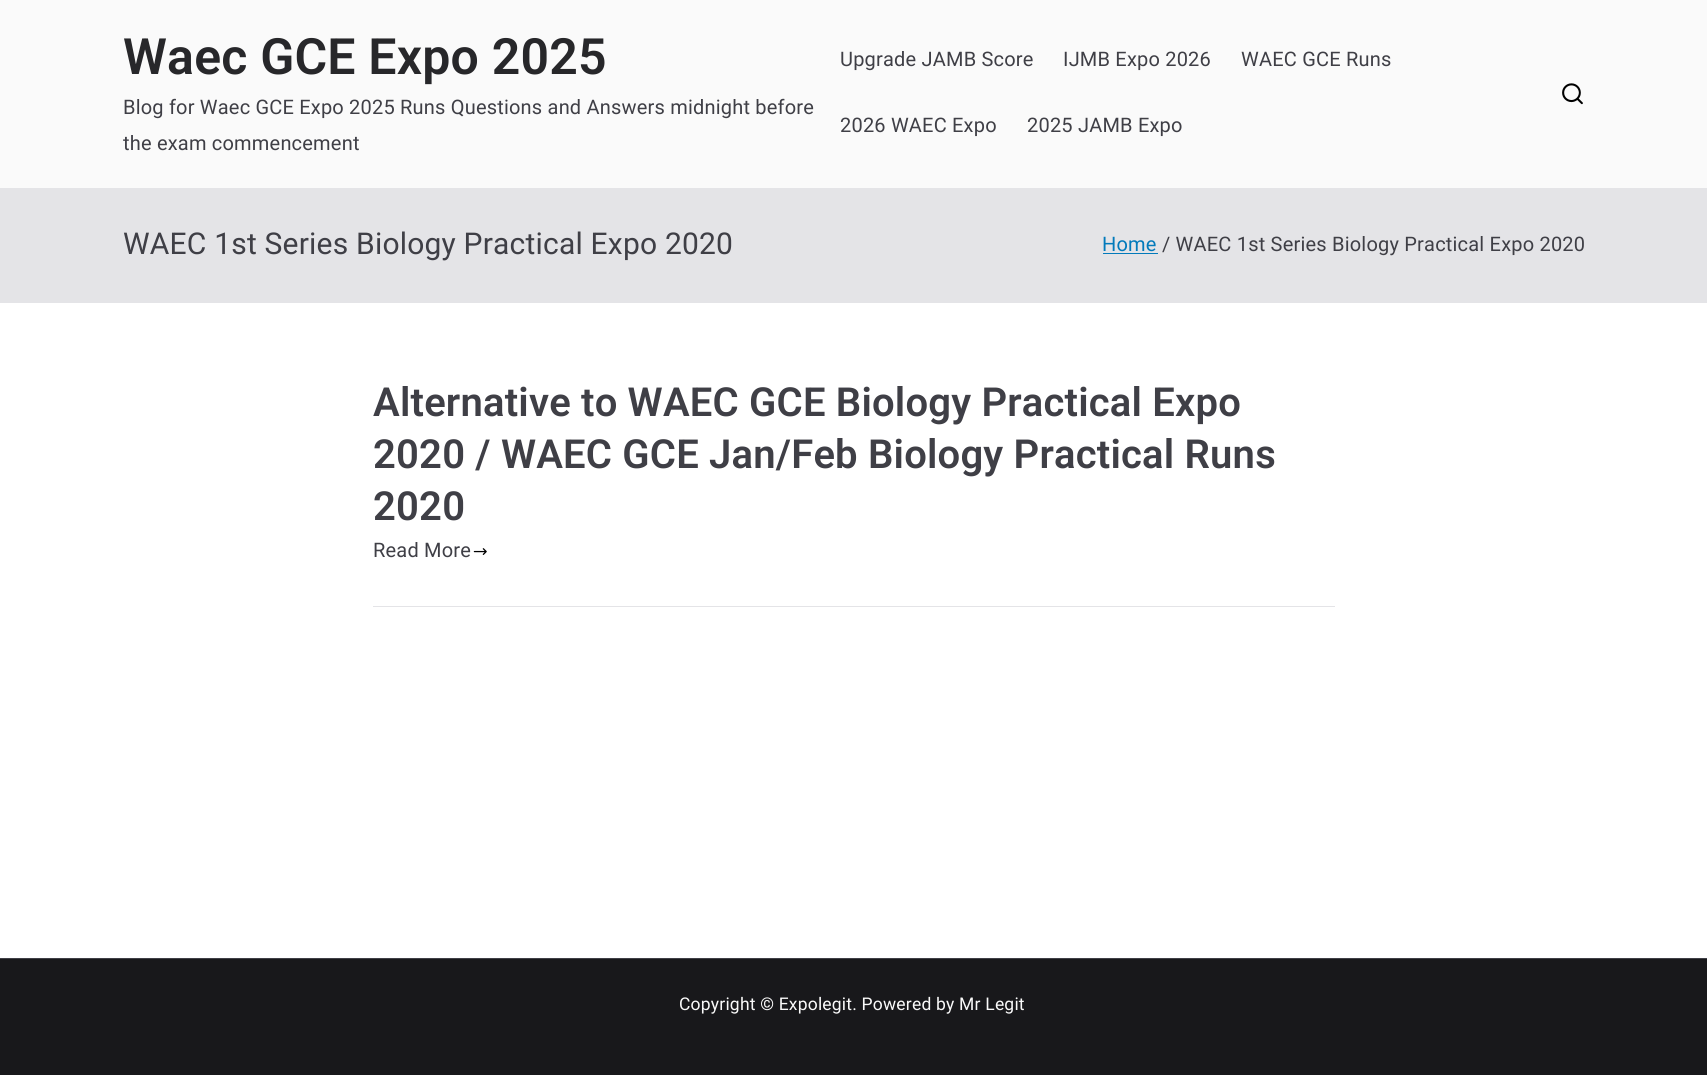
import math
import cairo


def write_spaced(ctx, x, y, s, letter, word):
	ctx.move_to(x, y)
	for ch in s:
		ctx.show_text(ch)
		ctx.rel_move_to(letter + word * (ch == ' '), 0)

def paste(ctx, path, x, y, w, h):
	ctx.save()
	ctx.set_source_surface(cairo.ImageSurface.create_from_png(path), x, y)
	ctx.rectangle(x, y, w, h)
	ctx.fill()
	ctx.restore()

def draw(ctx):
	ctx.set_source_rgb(0.98, 0.98, 0.98)
	ctx.paint()
	ctx.set_source_rgb(0.894, 0.894, 0.906)
	ctx.rectangle(0, 188, 1707, 115)
	ctx.fill()
	ctx.select_font_face('Roboto SemiBold')
	ctx.set_font_size(50)
	ctx.set_source_rgb(0.153, 0.153, 0.165)
	write_spaced(ctx, 123, 74, 'Waec GCE Expo 2025', 0.2, 0)
	ctx.select_font_face('Roboto')
	ctx.set_font_size(20)
	ctx.set_source_rgb(0.247, 0.247, 0.275)
	for x, y, s in [
		(123, 114, 'Blog for Waec GCE Expo 2025 Runs Questions and Answers midnight before'),
		(123, 150, 'the exam commencement'),
		(840, 66, 'Upgrade JAMB Score'),
		(1063, 66, 'IJMB Expo 2026'),
		(1241, 66, 'WAEC GCE Runs'),
		(840, 132, '2026 WAEC Expo'),
		(1027, 132, '2025 JAMB Expo'),
	]:
		write_spaced(ctx, x, y, s, 0.2, 0)
	paste(ctx, 'media/1.png', 1562, 83, 21, 22)
	ctx.set_font_size(30)
	write_spaced(ctx, 123, 254, 'WAEC 1st Series Biology Practical Expo 2020', 0.2, 0)
	ctx.set_font_size(20)
	ctx.set_source_rgb(0.008, 0.478, 0.733)
	write_spaced(ctx, 1102, 251, 'Home', 0.2, 0)
	ctx.rectangle(1103, 253, 55, 1)
	ctx.fill()
	ctx.set_source_rgb(0.247, 0.247, 0.275)
	write_spaced(ctx, 1162, 251, '/ WAEC 1st Series Biology Practical Expo 2020', 0.2, 0)
	ctx.set_source_rgb(1, 1, 1)
	ctx.rectangle(0, 303, 1707, 655)
	ctx.fill()
	ctx.set_source_rgb(0.894, 0.894, 0.906)
	ctx.rectangle(373, 606, 962, 1)
	ctx.fill()
	ctx.select_font_face('Roboto SemiBold')
	ctx.set_font_size(40)
	ctx.set_source_rgb(0.247, 0.247, 0.275)
	for x, y, s in [
		(373, 416, 'Alternative to WAEC GCE Biology Practical Expo'),
		(373, 468, '2020 / WAEC GCE Jan/Feb Biology Practical Runs'),
		(373, 520, '2020'),
	]:
		write_spaced(ctx, x, y, s, 0.2, 0)
	ctx.select_font_face('Roboto')
	ctx.set_font_size(20)
	write_spaced(ctx, 373, 557, 'Read More', 0.2, 0)
	paste(ctx, 'media/2.png', 473, 548, 14, 7)
	ctx.set_source_rgb(0.094, 0.094, 0.106)
	ctx.rectangle(0, 959, 1707, 116)
	ctx.fill()
	ctx.set_source_rgb(0.247, 0.247, 0.275)
	ctx.rectangle(0, 958, 1707, 1)
	ctx.fill()
	ctx.set_font_size(17.5)
	ctx.set_source_rgb(0.98, 0.98, 0.98)
	write_spaced(ctx, 679, 1010, 'Copyright © Expolegit. Powered by Mr Legit', 0.2, 0)


surface = cairo.ImageSurface(cairo.FORMAT_RGB24, 1707, 1075)
ctx = cairo.Context(surface)
options = cairo.FontOptions()
options.set_hint_metrics(cairo.HINT_METRICS_OFF)
options.set_hint_style(cairo.HINT_STYLE_NONE)
ctx.set_font_options(options)
ctx.set_miter_limit(4)
draw(ctx)
surface.write_to_png('image.png')
